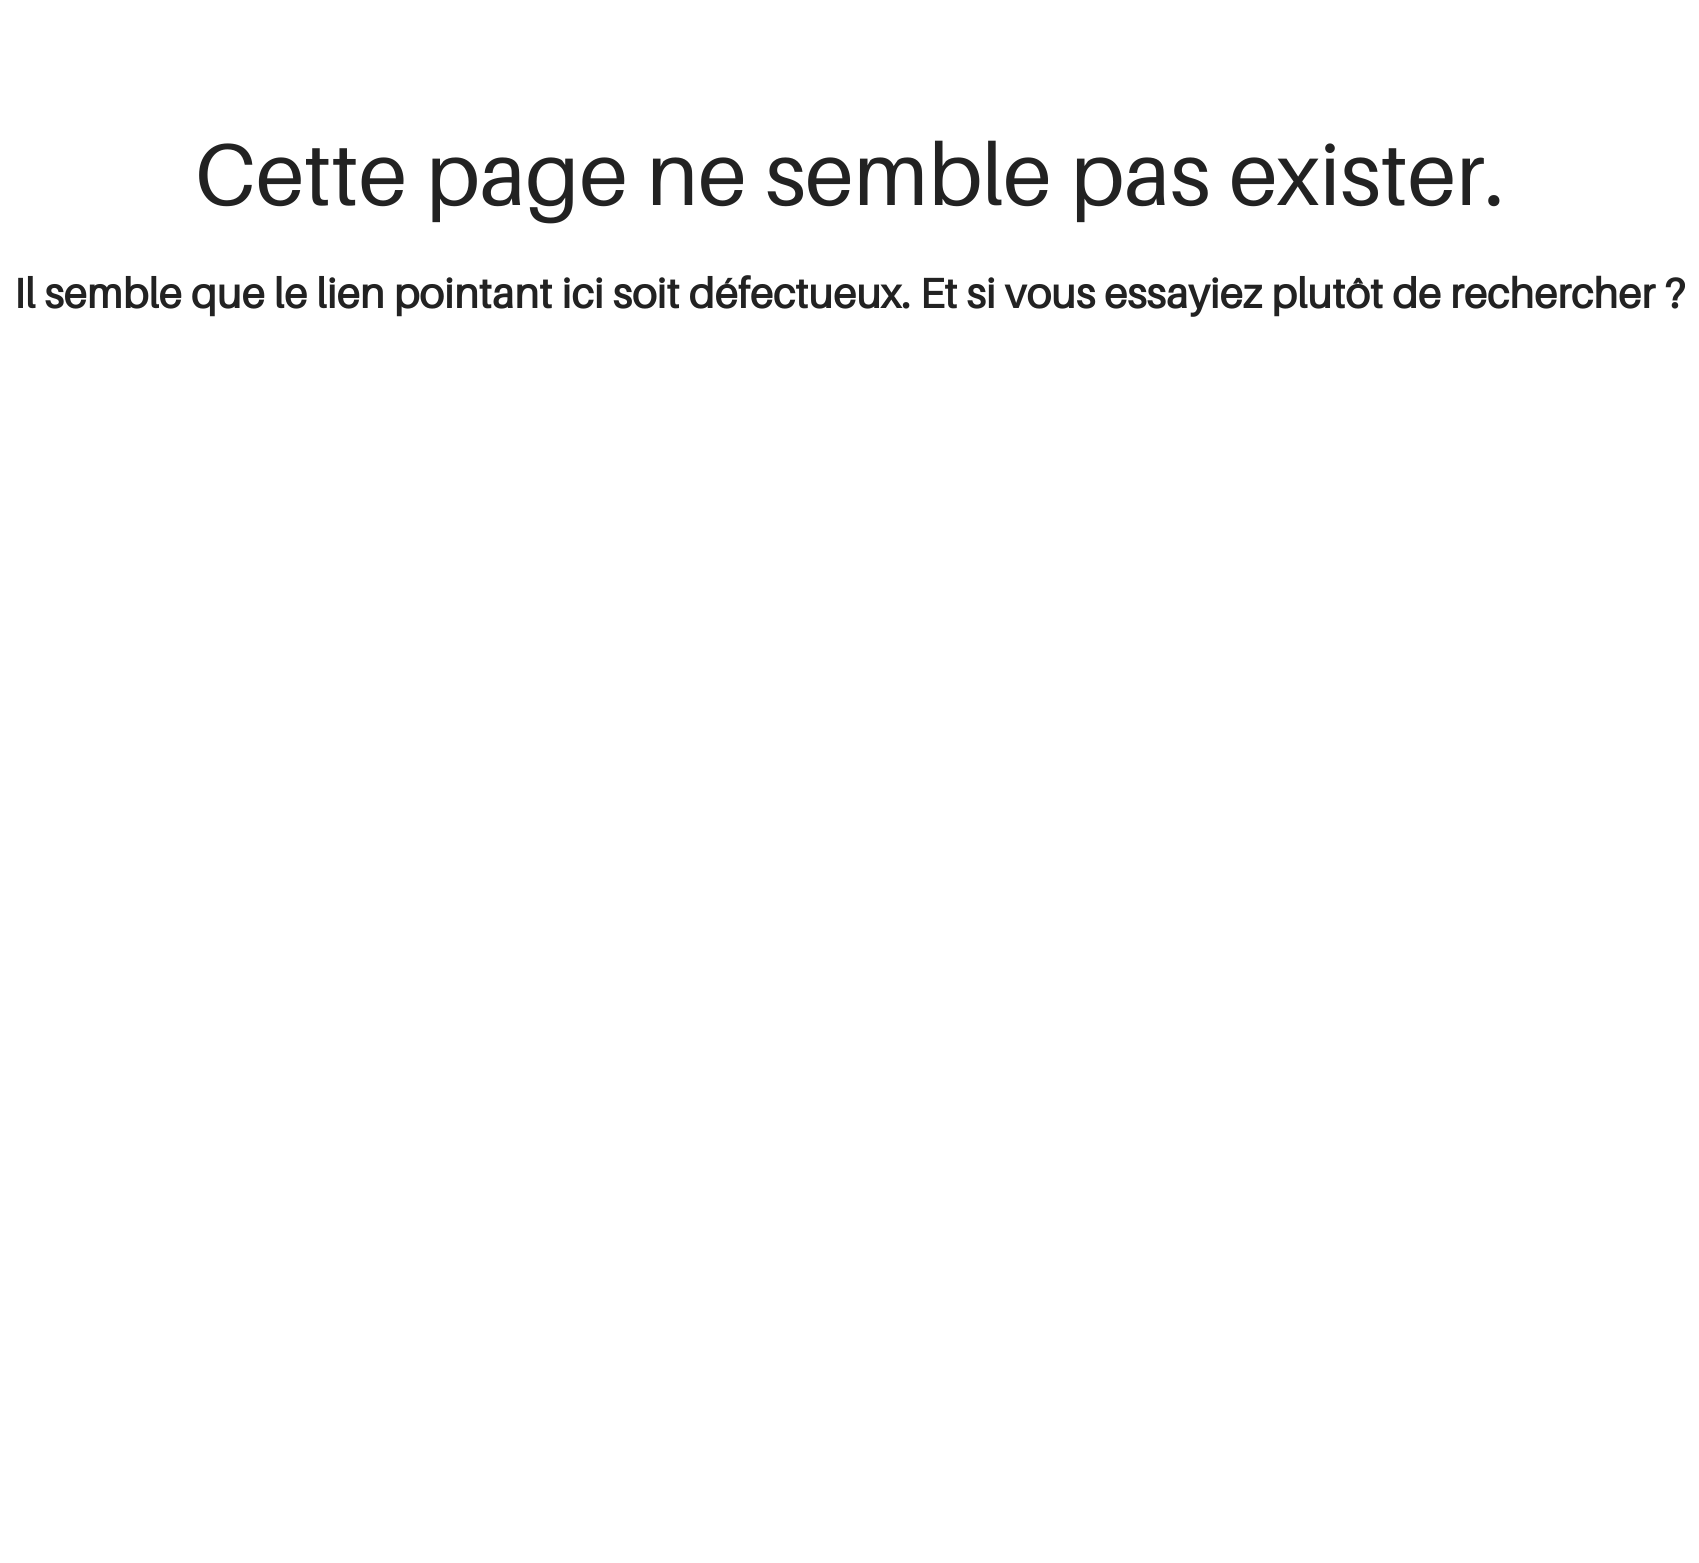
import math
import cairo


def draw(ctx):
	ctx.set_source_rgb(1, 1, 1)
	ctx.paint()
	ctx.select_font_face('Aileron')
	ctx.set_font_size(87.5)
	ctx.set_source_rgb(0.133, 0.133, 0.133)
	ctx.move_to(195, 205)
	ctx.show_text('Cette page ne semble pas exister.')
	ctx.select_font_face('Aileron', cairo.FONT_SLANT_NORMAL, cairo.FONT_WEIGHT_BOLD)
	ctx.set_font_size(42)
	ctx.move_to(14, 308)
	ctx.show_text('Il semble que le lien pointant ici soit défectueux. Et si vous essayiez plutôt de rechercher ?')


surface = cairo.ImageSurface(cairo.FORMAT_RGB24, 1699, 1563)
ctx = cairo.Context(surface)
options = cairo.FontOptions()
options.set_hint_metrics(cairo.HINT_METRICS_OFF)
options.set_hint_style(cairo.HINT_STYLE_NONE)
ctx.set_font_options(options)
ctx.set_miter_limit(4)
draw(ctx)
surface.write_to_png('image.png')
